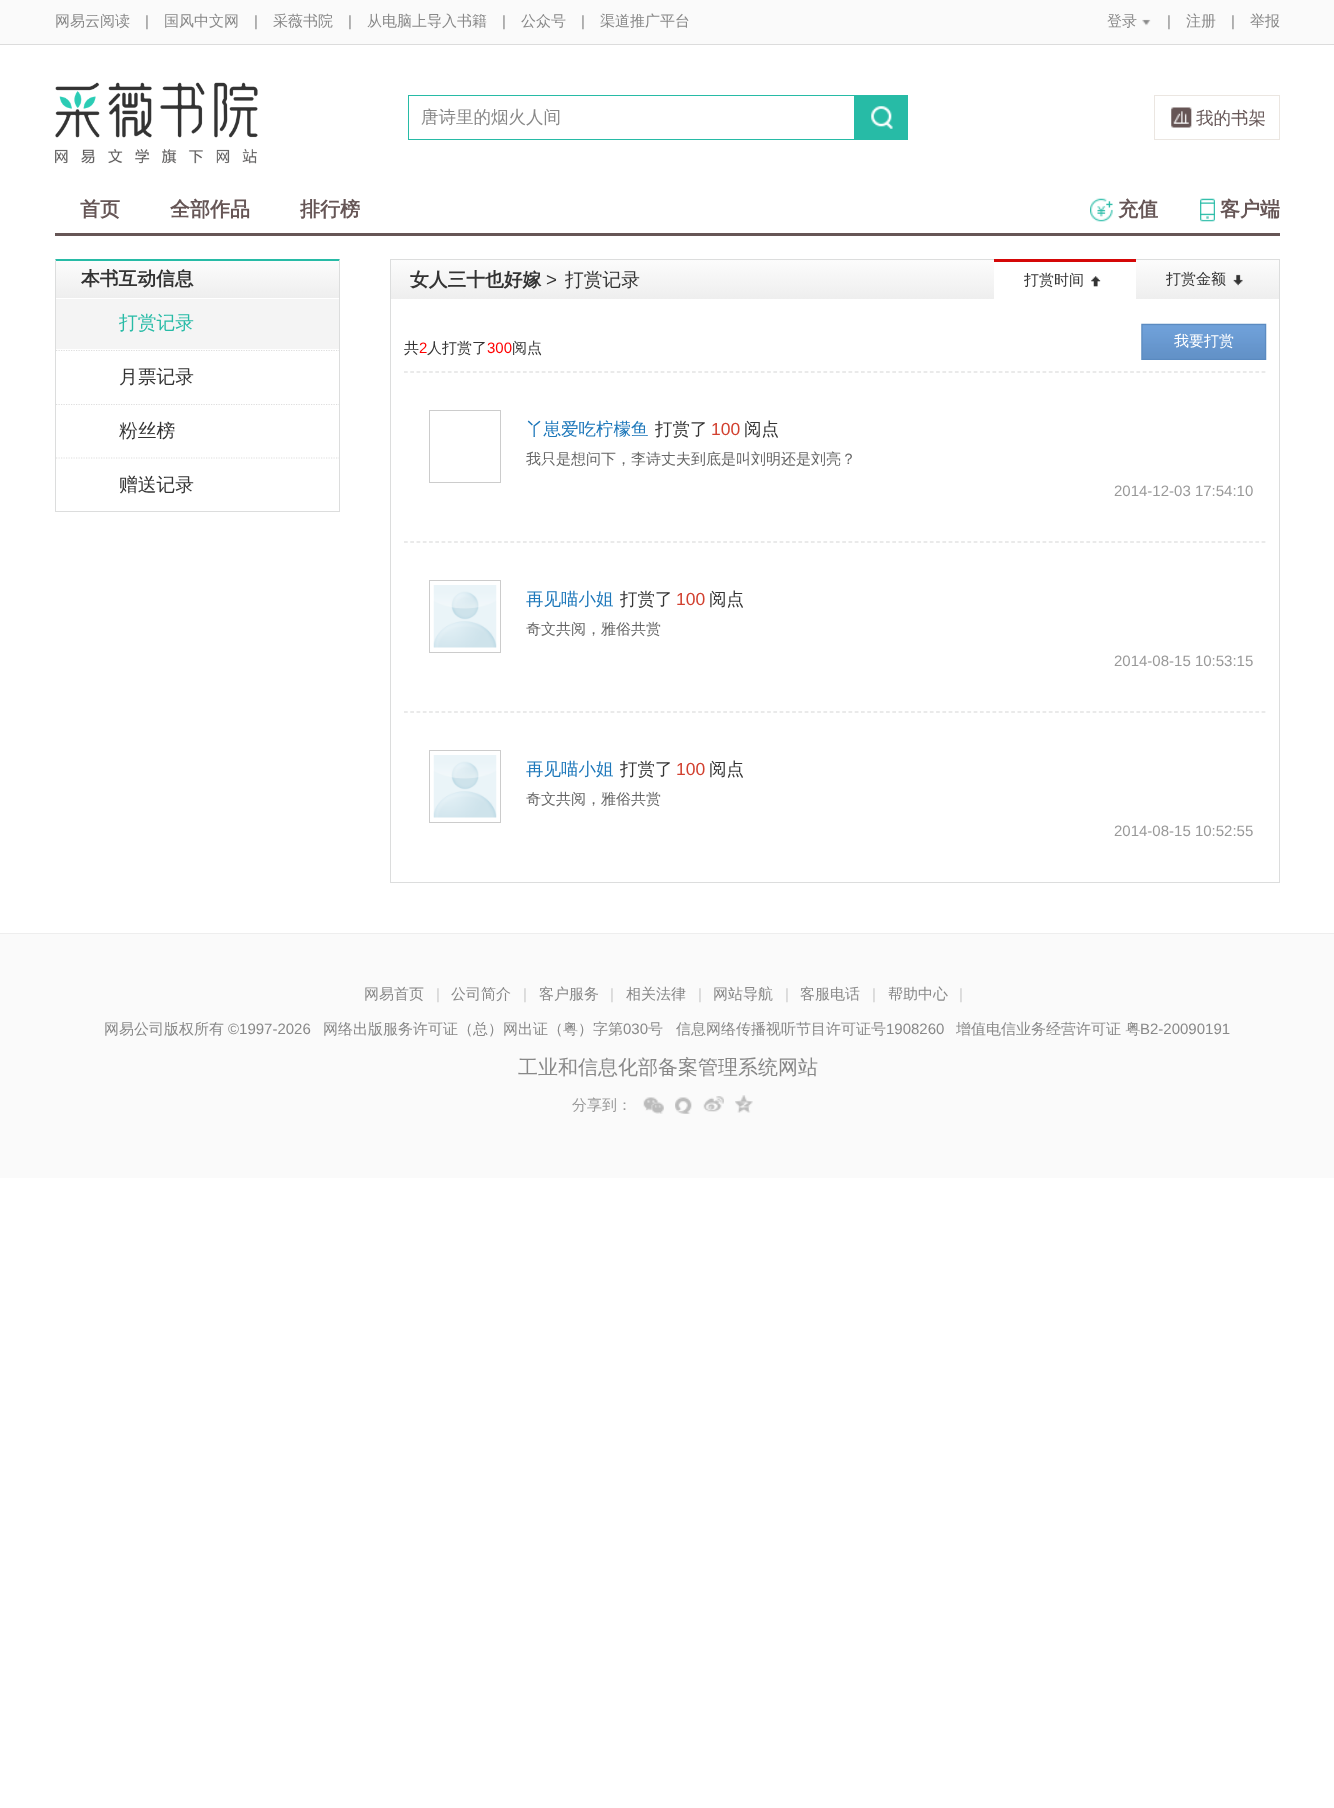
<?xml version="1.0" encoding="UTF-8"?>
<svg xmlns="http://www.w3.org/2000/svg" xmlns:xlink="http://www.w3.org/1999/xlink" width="1334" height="1808">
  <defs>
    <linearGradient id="g1" gradientUnits="userSpaceOnUse" x1="56" y1="261" x2="56" y2="298"><stop offset="0" stop-color="#fcfcfc" /><stop offset="1" stop-color="#eeeeee" /></linearGradient>
    <linearGradient id="g2" gradientUnits="userSpaceOnUse" x1="391" y1="260" x2="391" y2="299"><stop offset="0" stop-color="#fcfcfc" /><stop offset="1" stop-color="#eeeeee" /></linearGradient>
  </defs>
  <rect width="100%" height="100%" fill="#ffffff" />
  <rect width="1334" height="44" fill="#fafafa" />
  <rect y="44" width="1334" height="1" fill="#dcdcdc" />
  <image x="1142" y="19" width="9" height="7" xlink:href="image1.png" />
  <image x="55" y="82" width="203" height="82" xlink:href="image2.png" />
  <rect x="408.5" y="95.5" width="446" height="44" fill="none" stroke="#27bba6" />
  <rect x="855" y="95" width="53" height="45" fill="#27bba6" />
  <image x="871" y="106" width="22" height="23" xlink:href="image3.png" />
  <image x="1171" y="107" width="21" height="21" xlink:href="image4.png" />
  <rect x="1154.5" y="95.5" width="125" height="44" fill="none" stroke="#ebe6e1" />
  <rect x="55" y="233" width="1225" height="3" fill="#665656" />
  <image x="1090" y="198" width="23" height="24" xlink:href="image5.png" />
  <image x="1200" y="198" width="15" height="24" xlink:href="image6.png" />
  <path d="M 55 259 h 285 l -1 2 h -283 z" fill="#27bba6" />
  <path d="M 340 259 v 253 l -1 -1 v -250 z" fill="#dcdddd" />
  <rect x="55" y="511" width="285" height="1" fill="#dcdddd" />
  <path d="M 55 512 v -253 l 1 2 v 250 z" fill="#dcdddd" />
  <rect x="56" y="261" width="283" height="37" fill="url(#g1)" />
  <path d="M 56 350.5 h 283" fill="none" stroke="#dedede" stroke-width="1.2" stroke-dasharray="1.25 1.25" />
  <rect x="56" y="299" width="283" height="50" fill="#f4f4f4" />
  <rect x="56" y="349" width="283" height="1" fill="#ffffff" />
  <path d="M 56 404.5 h 283" fill="none" stroke="#dedede" stroke-width="1.2" stroke-dasharray="1.25 1.25" />
  <rect x="56" y="351" width="283" height="1" fill="#ffffff" />
  <rect x="56" y="403" width="283" height="1" fill="#ffffff" />
  <path d="M 56 458 h 283" fill="none" stroke="#dedede" stroke-width="1.2" stroke-dasharray="1.25 1.25" />
  <rect x="56" y="405" width="283" height="1" fill="#ffffff" />
  <rect x="390.5" y="259.5" width="889" height="623" fill="none" stroke="#dcdddd" />
  <rect x="391" y="260" width="888" height="39" fill="url(#g2)" />
  <rect x="994" y="262" width="142" height="37" fill="#ffffff" />
  <rect x="994" y="259" width="142" height="3" fill="#d50808" />
  <image x="1091" y="276" width="10" height="11" xlink:href="image7.png" />
  <image x="1233" y="274" width="10" height="12" xlink:href="image8.png" />
  <path d="M 404 372 h 862" fill="none" stroke="#d5d6d6" stroke-width="1.2" stroke-dasharray="3.75 2.51" />
  <image x="1141" y="323" width="126" height="37" xlink:href="image9.png" />
  <path d="M 404 542 h 862" fill="none" stroke="#d5d6d6" stroke-width="1.2" stroke-dasharray="3.75 2.51" />
  <rect x="429.5" y="410.5" width="71" height="72" fill="none" stroke="#cccccc" />
  <path d="M 404 712 h 862" fill="none" stroke="#d5d6d6" stroke-width="1.2" stroke-dasharray="3.75 2.51" />
  <rect x="429.5" y="580.5" width="71" height="72" fill="none" stroke="#cccccc" />
  <image x="433" y="585" width="64" height="63" xlink:href="image10.png" />
  <rect x="429.5" y="750.5" width="71" height="72" fill="none" stroke="#cccccc" />
  <image x="433" y="755" width="64" height="63" xlink:href="image10.png" />
  <rect y="934" width="1334" height="244" fill="#fafafa" />
  <rect y="933" width="1334" height="1" fill="#eeeeee" />
  <image x="643" y="1097" width="21" height="17" xlink:href="image11.png" />
  <image x="675" y="1097" width="17" height="17" xlink:href="image12.png" />
  <image x="703" y="1096" width="21" height="16" xlink:href="image13.png" />
  <image x="735" y="1095" width="18" height="18" xlink:href="image14.png" />
  <text x="55" y="26" style="font-family: WenQuanYi Zen Hei; font-size: 15px; font-weight: 500; fill: #888888">网易云阅读</text>
  <text x="145" y="26" style="font-family: Liberation Sans; font-size: 15px; fill: #888888">|</text>
  <text x="164" y="26" style="font-family: WenQuanYi Zen Hei; font-size: 15px; font-weight: 500; fill: #888888">国风中文网</text>
  <text x="254" y="26" style="font-family: Liberation Sans; font-size: 15px; fill: #888888">|</text>
  <text x="273" y="26" style="font-family: WenQuanYi Zen Hei; font-size: 15px; font-weight: 500; fill: #888888">采薇书院</text>
  <text x="348" y="26" style="font-family: Liberation Sans; font-size: 15px; fill: #888888">|</text>
  <text x="367" y="26" style="font-family: WenQuanYi Zen Hei; font-size: 15px; font-weight: 500; fill: #888888">从电脑上导入书籍</text>
  <text x="502" y="26" style="font-family: Liberation Sans; font-size: 15px; fill: #888888">|</text>
  <text x="521" y="26" style="font-family: WenQuanYi Zen Hei; font-size: 15px; font-weight: 500; fill: #888888">公众号</text>
  <text x="581" y="26" style="font-family: Liberation Sans; font-size: 15px; fill: #888888">|</text>
  <text x="600" y="26" style="font-family: WenQuanYi Zen Hei; font-size: 15px; font-weight: 500; fill: #888888">渠道推广平台</text>
  <text x="1107" y="26" style="font-family: WenQuanYi Zen Hei; font-size: 15px; font-weight: 500; fill: #888888">登录</text>
  <text x="1167" y="26" style="font-family: Liberation Sans; font-size: 15px; fill: #888888">|</text>
  <text x="1186" y="26" style="font-family: WenQuanYi Zen Hei; font-size: 15px; font-weight: 500; fill: #888888">注册</text>
  <text x="1231" y="26" style="font-family: Liberation Sans; font-size: 15px; fill: #888888">|</text>
  <text x="1250" y="26" style="font-family: WenQuanYi Zen Hei; font-size: 15px; font-weight: 500; fill: #888888">举报</text>
  <text x="421" y="123" style="font-family: WenQuanYi Zen Hei; font-size: 17.5px; font-weight: 500; fill: #888888">唐诗里的烟火人间</text>
  <text x="1196" y="124" style="font-family: WenQuanYi Zen Hei; font-size: 17.5px; font-weight: 500; fill: #665656">我的书架</text>
  <text x="80" y="216" style="font-family: WenQuanYi Zen Hei; font-size: 20px; font-weight: bold; fill: #665656">首页</text>
  <text x="170" y="216" style="font-family: WenQuanYi Zen Hei; font-size: 20px; font-weight: bold; fill: #665656">全部作品</text>
  <text x="300" y="216" style="font-family: WenQuanYi Zen Hei; font-size: 20px; font-weight: bold; fill: #665656">排行榜</text>
  <text x="1118" y="216" style="font-family: WenQuanYi Zen Hei; font-size: 20px; font-weight: bold; fill: #665656">充值</text>
  <text x="1220" y="216" style="font-family: WenQuanYi Zen Hei; font-size: 20px; font-weight: bold; fill: #665656">客户端</text>
  <text x="81" y="285" style="font-family: WenQuanYi Zen Hei; font-size: 18.75px; font-weight: bold; fill: #333333">本书互动信息</text>
  <text x="119" y="329" style="font-family: WenQuanYi Zen Hei; font-size: 18.75px; font-weight: 500; fill: #27bba6">打赏记录</text>
  <text x="119" y="383" style="font-family: WenQuanYi Zen Hei; font-size: 18.75px; font-weight: 500; fill: #333333">月票记录</text>
  <text x="119" y="437" style="font-family: WenQuanYi Zen Hei; font-size: 18.75px; font-weight: 500; fill: #333333">粉丝榜</text>
  <text x="119" y="491" style="font-family: WenQuanYi Zen Hei; font-size: 18.75px; font-weight: 500; fill: #333333">赠送记录</text>
  <text x="410" y="286" style="font-family: WenQuanYi Zen Hei; font-size: 18.75px; font-weight: bold; fill: #333333">女人三十也好嫁</text>
  <text x="546" y="286" style="font-family: Liberation Sans; font-size: 18.75px; fill: #333333">&gt;</text>
  <text x="565" y="286" style="font-family: WenQuanYi Zen Hei; font-size: 18.75px; font-weight: 500; fill: #333333">打赏记录</text>
  <text x="1024" y="285" style="font-family: WenQuanYi Zen Hei; font-size: 15px; font-weight: 500; fill: #333333">打赏时间</text>
  <text x="1166" y="284" style="font-family: WenQuanYi Zen Hei; font-size: 15px; font-weight: 500; fill: #333333">打赏金额</text>
  <text x="404" y="353" style="font-family: WenQuanYi Zen Hei; font-size: 15px; font-weight: 500; fill: #333333">共</text>
  <text x="419" y="353" style="font-family: Liberation Sans; font-size: 15px; fill: #ff0000">2</text>
  <text x="427" y="353" style="font-family: WenQuanYi Zen Hei; font-size: 15px; font-weight: 500; fill: #333333">人打赏了</text>
  <text x="487" y="353" style="font-family: Liberation Sans; font-size: 15px; fill: #ff0000">300</text>
  <text x="512" y="353" style="font-family: WenQuanYi Zen Hei; font-size: 15px; font-weight: 500; fill: #333333">阅点</text>
  <text x="1174" y="346" style="font-family: WenQuanYi Zen Hei; font-size: 15px; font-weight: 500; fill: #ffffff">我要打赏</text>
  <text x="526" y="435" style="font-family: WenQuanYi Zen Hei; font-size: 17.5px; font-weight: 500; fill: #1c77ba">丫崽爱吃柠檬鱼</text>
  <text x="655" y="435" style="font-family: WenQuanYi Zen Hei; font-size: 17.5px; font-weight: 500; fill: #333333">打赏了</text>
  <text x="711" y="435" style="font-family: Liberation Sans; font-size: 17.5px; fill: #d24130">100</text>
  <text x="744" y="435" style="font-family: WenQuanYi Zen Hei; font-size: 17.5px; font-weight: 500; fill: #333333">阅点</text>
  <text x="526" y="464" style="font-family: WenQuanYi Zen Hei; font-size: 15px; font-weight: 500; fill: #666666">我只是想问下，李诗丈夫到底是叫刘明还是刘亮？</text>
  <text x="1114" y="496" style="font-family: Liberation Sans; font-size: 15px; fill: #999999">2014-12-03 17:54:10</text>
  <text x="526" y="605" style="font-family: WenQuanYi Zen Hei; font-size: 17.5px; font-weight: 500; fill: #1c77ba">再见喵小姐</text>
  <text x="620" y="605" style="font-family: WenQuanYi Zen Hei; font-size: 17.5px; font-weight: 500; fill: #333333">打赏了</text>
  <text x="676" y="605" style="font-family: Liberation Sans; font-size: 17.5px; fill: #d24130">100</text>
  <text x="709" y="605" style="font-family: WenQuanYi Zen Hei; font-size: 17.5px; font-weight: 500; fill: #333333">阅点</text>
  <text x="526" y="634" style="font-family: WenQuanYi Zen Hei; font-size: 15px; font-weight: 500; fill: #666666">奇文共阅，雅俗共赏</text>
  <text x="1114" y="666" style="font-family: Liberation Sans; font-size: 15px; fill: #999999">2014-08-15 10:53:15</text>
  <text x="526" y="775" style="font-family: WenQuanYi Zen Hei; font-size: 17.5px; font-weight: 500; fill: #1c77ba">再见喵小姐</text>
  <text x="620" y="775" style="font-family: WenQuanYi Zen Hei; font-size: 17.5px; font-weight: 500; fill: #333333">打赏了</text>
  <text x="676" y="775" style="font-family: Liberation Sans; font-size: 17.5px; fill: #d24130">100</text>
  <text x="709" y="775" style="font-family: WenQuanYi Zen Hei; font-size: 17.5px; font-weight: 500; fill: #333333">阅点</text>
  <text x="526" y="804" style="font-family: WenQuanYi Zen Hei; font-size: 15px; font-weight: 500; fill: #666666">奇文共阅，雅俗共赏</text>
  <text x="1114" y="836" style="font-family: Liberation Sans; font-size: 15px; fill: #999999">2014-08-15 10:52:55</text>
  <text x="364" y="999" style="font-family: WenQuanYi Zen Hei; font-size: 15px; font-weight: 500; fill: #888888">网易首页</text>
  <text x="436" y="999" style="font-family: Liberation Sans; font-size: 15px; fill: #cccccc">|</text>
  <text x="451" y="999" style="font-family: WenQuanYi Zen Hei; font-size: 15px; font-weight: 500; fill: #888888">公司简介</text>
  <text x="523" y="999" style="font-family: Liberation Sans; font-size: 15px; fill: #cccccc">|</text>
  <text x="539" y="999" style="font-family: WenQuanYi Zen Hei; font-size: 15px; font-weight: 500; fill: #888888">客户服务</text>
  <text x="610" y="999" style="font-family: Liberation Sans; font-size: 15px; fill: #cccccc">|</text>
  <text x="626" y="999" style="font-family: WenQuanYi Zen Hei; font-size: 15px; font-weight: 500; fill: #888888">相关法律</text>
  <text x="698" y="999" style="font-family: Liberation Sans; font-size: 15px; fill: #cccccc">|</text>
  <text x="713" y="999" style="font-family: WenQuanYi Zen Hei; font-size: 15px; font-weight: 500; fill: #888888">网站导航</text>
  <text x="785" y="999" style="font-family: Liberation Sans; font-size: 15px; fill: #cccccc">|</text>
  <text x="800" y="999" style="font-family: WenQuanYi Zen Hei; font-size: 15px; font-weight: 500; fill: #888888">客服电话</text>
  <text x="872" y="999" style="font-family: Liberation Sans; font-size: 15px; fill: #cccccc">|</text>
  <text x="888" y="999" style="font-family: WenQuanYi Zen Hei; font-size: 15px; font-weight: 500; fill: #888888">帮助中心</text>
  <text x="959" y="999" style="font-family: Liberation Sans; font-size: 15px; fill: #cccccc">|</text>
  <text x="104" y="1034" style="font-family: WenQuanYi Zen Hei; font-size: 15px; font-weight: 500; fill: #888888">网易公司版权所有</text>
  <text x="228" y="1034" style="font-family: Liberation Sans; font-size: 15px; fill: #888888">©1997-2026</text>
  <text x="323" y="1034" style="font-family: WenQuanYi Zen Hei; font-size: 15px; font-weight: 500; fill: #888888">网络出版服务许可证（总）网出证（粤）字第</text>
  <text x="623" y="1034" style="font-family: Liberation Sans; font-size: 15px; fill: #888888">030</text>
  <text x="648" y="1034" style="font-family: WenQuanYi Zen Hei; font-size: 15px; font-weight: 500; fill: #888888">号</text>
  <text x="676" y="1034" style="font-family: WenQuanYi Zen Hei; font-size: 15px; font-weight: 500; fill: #888888">信息网络传播视听节目许可证号</text>
  <text x="886" y="1034" style="font-family: Liberation Sans; font-size: 15px; fill: #888888">1908260</text>
  <text x="956" y="1034" style="font-family: WenQuanYi Zen Hei; font-size: 15px; font-weight: 500; fill: #888888">增值电信业务经营许可证 粤</text>
  <text x="1140" y="1034" style="font-family: Liberation Sans; font-size: 15px; fill: #888888">B2-20090191</text>
  <text x="518" y="1074" style="font-family: WenQuanYi Zen Hei; font-size: 20px; font-weight: 500; fill: #888888">工业和信息化部备案管理系统网站</text>
  <text x="572" y="1110" style="font-family: WenQuanYi Zen Hei; font-size: 15px; font-weight: 500; fill: #999999">分享到：</text>
</svg>
